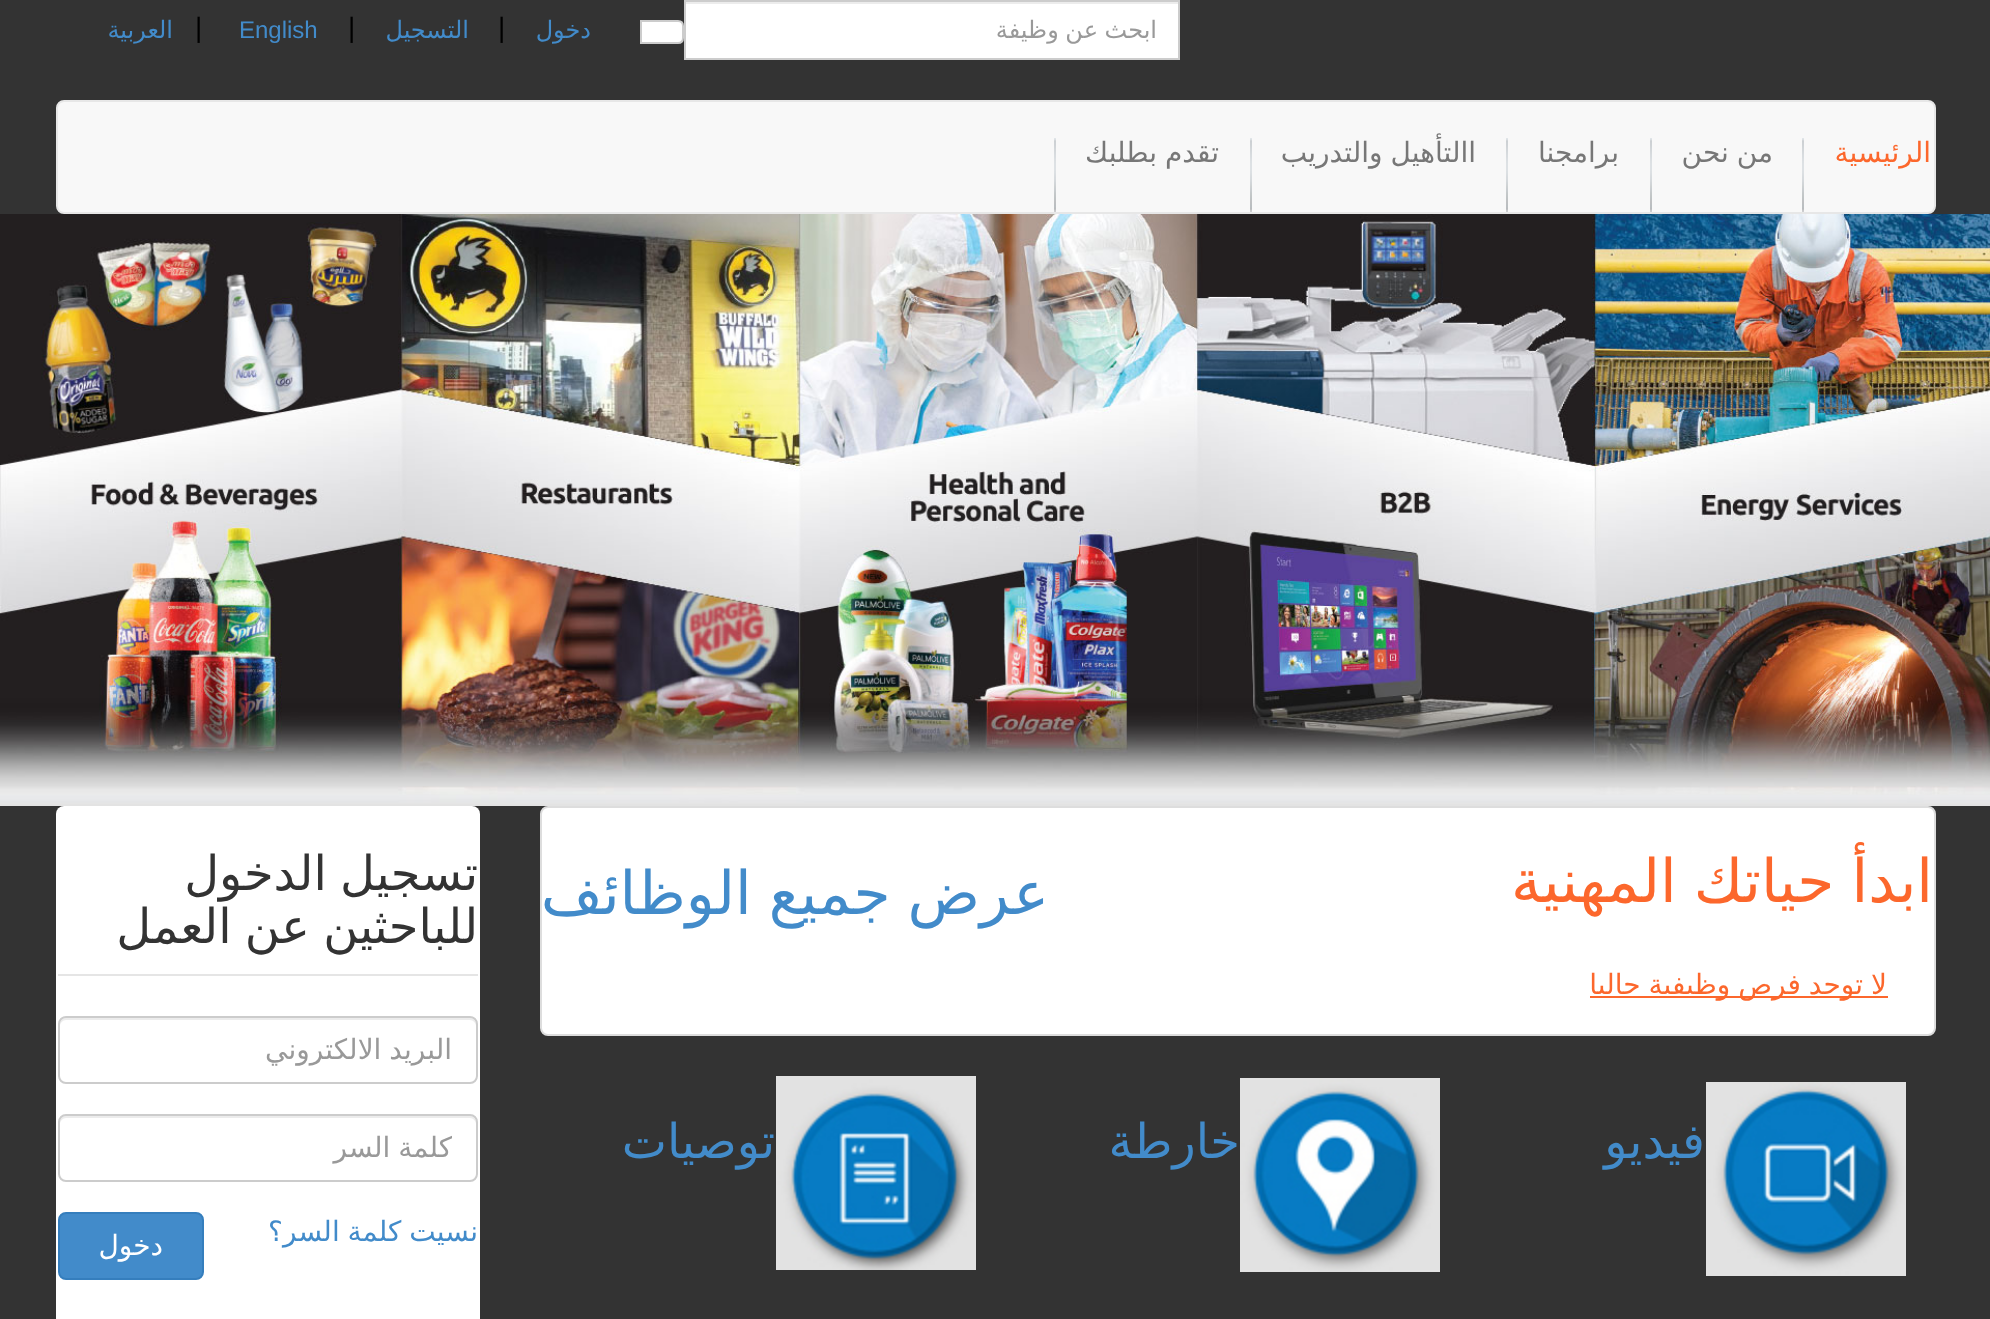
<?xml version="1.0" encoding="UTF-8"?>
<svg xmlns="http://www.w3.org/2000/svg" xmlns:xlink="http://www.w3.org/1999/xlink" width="1990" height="1319">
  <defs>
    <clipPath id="clip1"><rect x="84" y="1132" width="368" height="32" /></clipPath>
  </defs>
  <rect width="100%" height="100%" fill="#333333" />
  <rect x="686" y="4" width="492" height="54" fill="#ffffff" />
  <rect x="686" y="2" width="492" height="2" fill="#ececec" />
  <rect x="685" y="1" width="494" height="58" fill="none" stroke="#cccccc" stroke-width="2" />
  <path d="M 641 21 h 37 c 3 0 5 2 5 5 v 12 c 0 3 -2 5 -5 5 h -37 z" fill="#ffffff" stroke="#cccccc" stroke-width="2" />
  <rect x="57" y="101" width="1878" height="112" rx="7" fill="#f8f8f8" stroke="#e7e7e7" stroke-width="2" />
  <image x="1802" y="138" width="2" height="74" xlink:href="image1.png" />
  <image x="1650" y="138" width="2" height="74" xlink:href="image1.png" />
  <image x="1506" y="138" width="2" height="74" xlink:href="image1.png" />
  <image x="1250" y="138" width="2" height="74" xlink:href="image1.png" />
  <image x="1054" y="138" width="2" height="74" xlink:href="image1.png" />
  <image x="0" y="214" width="1990" height="592" xlink:href="image2.png" />
  <rect x="541" y="807" width="1394" height="228" rx="7" fill="#ffffff" stroke="#dddddd" stroke-width="2" />
  <rect x="1590" y="996" width="298" height="2" fill="#fc672c" />
  <image x="1706" y="1082" width="200" height="194" xlink:href="image3.png" />
  <image x="1240" y="1078" width="200" height="194" xlink:href="image4.png" />
  <image x="776" y="1076" width="200" height="194" xlink:href="image5.png" />
  <rect x="56" y="806" width="424" height="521" rx="8" fill="#ffffff" />
  <rect x="58" y="974" width="420" height="2" fill="#e5e5e5" />
  <path d="M 66 1020 h 404 c 3 0 6 3 6 6 v -2 c 0 -3 -3 -6 -6 -6 h -404 c -3 0 -6 3 -6 6 v 2 c 0 -3 3 -6 6 -6 z" fill="#ececec" />
  <rect x="59" y="1017" width="418" height="66" rx="7" fill="none" stroke="#cccccc" stroke-width="2" />
  <path d="M 66 1118 h 404 c 3 0 6 3 6 6 v -2 c 0 -3 -3 -6 -6 -6 h -404 c -3 0 -6 3 -6 6 v 2 c 0 -3 3 -6 6 -6 z" fill="#ececec" />
  <rect x="59" y="1115" width="418" height="66" rx="7" fill="none" stroke="#cccccc" stroke-width="2" />
  <rect x="59" y="1213" width="144" height="66" rx="7" fill="#428bca" stroke="#357ebd" stroke-width="2" />
  <text x="1157" y="38" word-spacing="-1" style="font-family: DejaVu Sans; font-size: 24px; direction: rtl; fill: #999999">ابحث عن وظيفة</text>
  <text x="591" y="38" style="font-family: DejaVu Sans; font-size: 24px; direction: rtl; fill: #428bca">دخول</text>
  <text x="498" y="37" style="font-family: Liberation Sans; font-size: 28px; fill: #000000">|</text>
  <text x="469" y="38" style="font-family: DejaVu Sans; font-size: 24px; direction: rtl; fill: #428bca">التسجيل</text>
  <text x="348" y="37" style="font-family: Liberation Sans; font-size: 28px; fill: #000000">|</text>
  <text x="239" y="38" style="font-family: Liberation Sans; font-size: 24px; fill: #428bca">English</text>
  <text x="195" y="37" style="font-family: Liberation Sans; font-size: 28px; fill: #000000">|</text>
  <text x="173" y="38" style="font-family: DejaVu Sans; font-size: 24px; direction: rtl; fill: #428bca">العربية</text>
  <text x="1931" y="162" style="font-family: DejaVu Sans; font-size: 28px; direction: rtl; fill: #fc672c">الرئيسية</text>
  <text x="1773" y="162" word-spacing="-1" style="font-family: DejaVu Sans; font-size: 28px; direction: rtl; fill: #777777">من نحن</text>
  <text x="1619" y="162" style="font-family: DejaVu Sans; font-size: 28px; direction: rtl; fill: #777777">برامجنا</text>
  <text x="1476" y="162" word-spacing="-1" style="font-family: DejaVu Sans; font-size: 28px; direction: rtl; fill: #777777">االتأهيل والتدريب</text>
  <text x="1219" y="162" word-spacing="-1" style="font-family: DejaVu Sans; font-size: 28px; direction: rtl; fill: #777777">تقدم بطلبك</text>
  <text x="1933" y="902" word-spacing="-2" style="font-family: DejaVu Sans; font-size: 60px; direction: rtl; fill: #fc672c">ابدأ حياتك المهنية</text>
  <text x="1049" y="914" word-spacing="-2" style="font-family: DejaVu Sans; font-size: 60px; direction: rtl; fill: #428bca">عرض جميع الوظائف</text>
  <text x="1887" y="994" word-spacing="-1" style="font-family: DejaVu Sans; font-size: 28px; direction: rtl; fill: #fc672c">لا توجد فرص وظيفية حاليا</text>
  <text x="1705" y="1158" style="font-family: DejaVu Sans; font-size: 48px; direction: rtl; fill: #428bca">فيديو</text>
  <text x="1240" y="1158" style="font-family: DejaVu Sans; font-size: 48px; direction: rtl; fill: #428bca">خارطة</text>
  <text x="775" y="1158" style="font-family: DejaVu Sans; font-size: 48px; direction: rtl; fill: #428bca">توصيات</text>
  <text x="478" y="890" word-spacing="-2" style="font-family: DejaVu Sans; font-size: 48px; direction: rtl; fill: #333333">تسجيل الدخول</text>
  <text x="478" y="943" word-spacing="-2" style="font-family: DejaVu Sans; font-size: 48px; direction: rtl; fill: #333333">للباحثين عن العمل</text>
  <text x="452" y="1059" word-spacing="-1" style="font-family: DejaVu Sans; font-size: 28px; direction: rtl; fill: #999999">البريد الالكتروني</text>
  <g clip-path="url(#clip1)">
    <text x="452" y="1157" word-spacing="-1" style="font-family: DejaVu Sans; font-size: 28px; direction: rtl; fill: #999999">كلمة السر</text>
  </g>
  <text x="478" y="1241" word-spacing="-1" style="font-family: DejaVu Sans; font-size: 28px; direction: rtl; fill: #428bca">نسيت كلمة السر؟</text>
  <text x="163" y="1255" style="font-family: DejaVu Sans; font-size: 28px; direction: rtl; fill: #ffffff">دخول</text>
</svg>
